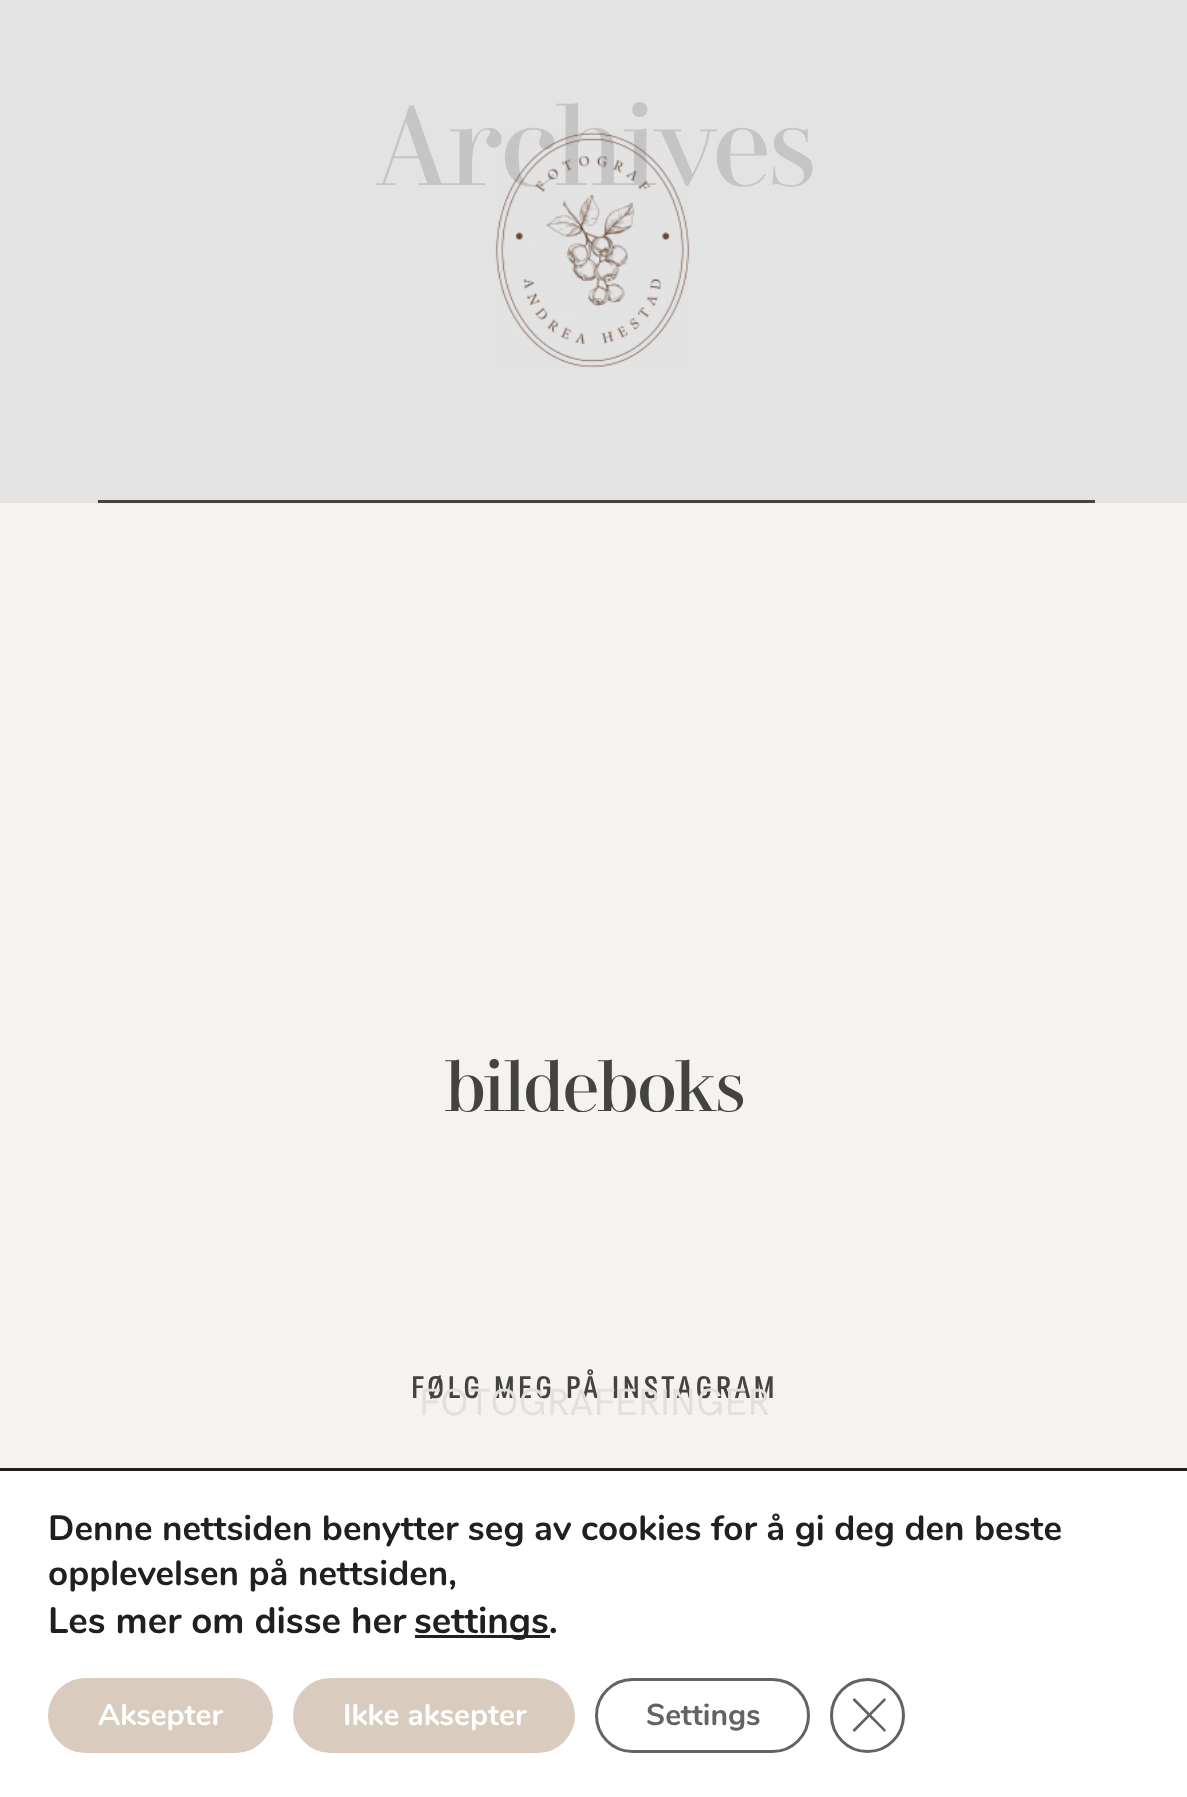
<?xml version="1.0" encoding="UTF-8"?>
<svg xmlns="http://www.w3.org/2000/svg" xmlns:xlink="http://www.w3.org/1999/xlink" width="1187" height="1797">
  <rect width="100%" height="100%" fill="#f6f2f0" />
  <rect width="1187" height="503" fill="#e4e3e3" />
  <rect x="98" y="500" width="997" height="3" fill="#434442" />
  <rect y="1471" width="1187" height="326" fill="#ffffff" />
  <rect y="1468" width="1187" height="3" fill="#202020" />
  <rect x="415" y="1635" width="135" height="3" fill="#202020" />
  <rect x="48" y="1678" width="225" height="75" rx="37.5" fill="#d9cbbe" />
  <rect x="293" y="1678" width="282" height="75" rx="37.5" fill="#d9cbbe" />
  <rect x="596.5" y="1679.5" width="212" height="72" rx="36" fill="none" stroke="#636363" stroke-width="3" />
  <circle cx="867.5" cy="1715.5" r="36" fill="none" stroke="#626262" stroke-width="3" />
  <path d="M 884.5 1698 l 1.5 2 l -31.5 32 l -2 -2 z" fill="#626262" />
  <path d="M 852.5 1700 l 2 -2 l 31.5 32 l -1.5 2 z" fill="#626262" />
  <text x="375" y="185" style="font-family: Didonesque; font-size: 111px; letter-spacing: -3.25px; fill: #c5c5c5">Archives</text>
  <image x="495" y="132" width="195" height="236" xlink:href="image1.png" />
  <text x="444" y="1111" style="font-family: Didonesque; font-size: 69.5px; letter-spacing: -2px; fill: #434442">bildeboks</text>
  <text x="411" y="1398" style="font-family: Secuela; font-size: 31.75px; font-weight: 500; letter-spacing: 3.2px; fill: #434442">FØLG MEG PÅ INSTAGRAM</text>
  <text x="419" y="1415" style="font-family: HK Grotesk; font-size: 38px; fill: #e3dfdd">FOTOGRAFERINGER</text>
  <text x="48" y="1540" style="font-family: Nunito; font-size: 35px; font-weight: bold; fill: #202020">Denne nettsiden benytter seg av cookies for å gi deg den beste</text>
  <text x="48" y="1585" style="font-family: Nunito; font-size: 35px; font-weight: bold; fill: #202020">opplevelsen på nettsiden,</text>
  <text x="48" y="1633" style="font-family: Nunito; font-size: 36.75px; font-weight: bold; fill: #202020">Les mer om disse her</text>
  <text x="414" y="1633" style="font-family: Nunito; font-size: 36.75px; font-weight: bold; fill: #202020">settings.</text>
  <text x="98" y="1725" style="font-family: Nunito; font-size: 30px; font-weight: bold; fill: #ffffff">Aksepter</text>
  <text x="343" y="1725" style="font-family: Nunito; font-size: 30px; font-weight: bold; fill: #ffffff">Ikke aksepter</text>
  <text x="646" y="1725" style="font-family: Nunito; font-size: 30px; font-weight: bold; fill: #636363">Settings</text>
</svg>
